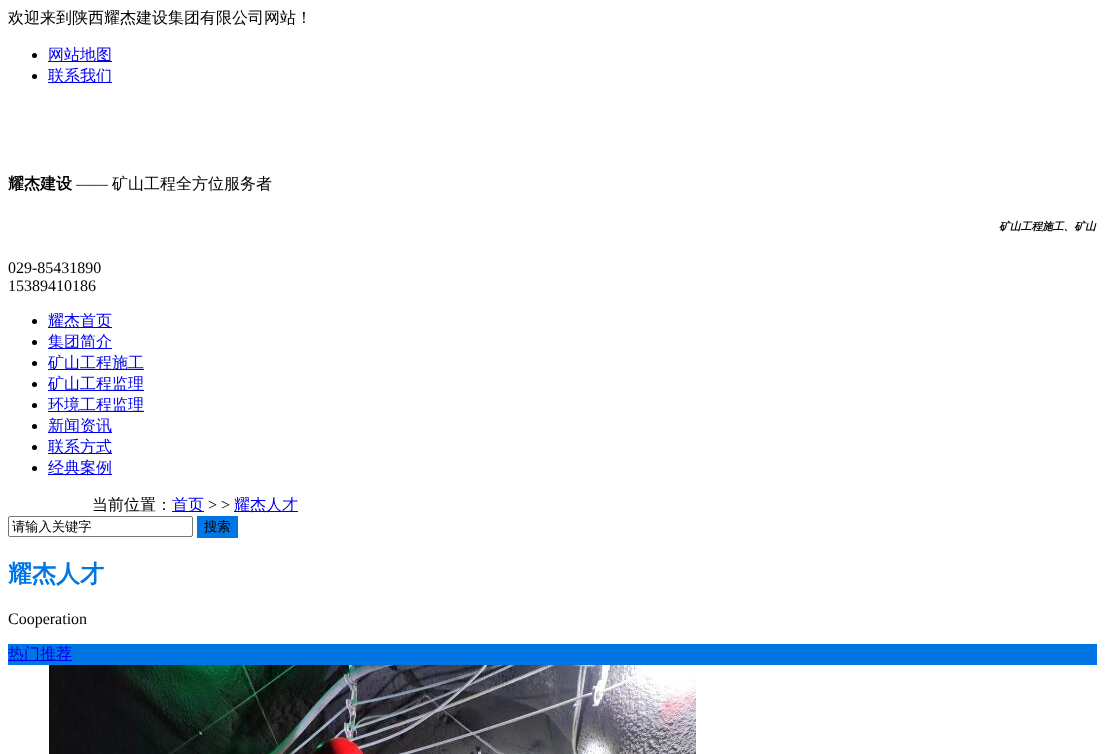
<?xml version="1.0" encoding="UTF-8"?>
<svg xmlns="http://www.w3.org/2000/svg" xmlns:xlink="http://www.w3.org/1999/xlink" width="1105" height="754">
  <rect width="100%" height="100%" fill="#ffffff" />
  <circle cx="34.5" cy="55.5" r="2.5" fill="#000000" />
  <rect x="48" y="61" width="64" height="1" fill="#0000ee" />
  <circle cx="34.5" cy="76.5" r="2.5" fill="#000000" />
  <rect x="48" y="82" width="64" height="1" fill="#0000ee" />
  <circle cx="34.5" cy="321.5" r="2.5" fill="#000000" />
  <rect x="48" y="327" width="64" height="1" fill="#0000ee" />
  <circle cx="34.5" cy="342.5" r="2.5" fill="#000000" />
  <rect x="48" y="348" width="64" height="1" fill="#0000ee" />
  <circle cx="34.5" cy="363.5" r="2.5" fill="#000000" />
  <rect x="48" y="369" width="96" height="1" fill="#0000ee" />
  <circle cx="34.5" cy="384.5" r="2.5" fill="#000000" />
  <rect x="48" y="390" width="96" height="1" fill="#0000ee" />
  <circle cx="34.5" cy="405.5" r="2.5" fill="#000000" />
  <rect x="48" y="411" width="96" height="1" fill="#0000ee" />
  <circle cx="34.5" cy="426.5" r="2.5" fill="#000000" />
  <rect x="48" y="432" width="64" height="1" fill="#0000ee" />
  <circle cx="34.5" cy="447.5" r="2.5" fill="#000000" />
  <rect x="48" y="453" width="64" height="1" fill="#0000ee" />
  <circle cx="34.5" cy="468.5" r="2.5" fill="#000000" />
  <rect x="48" y="474" width="64" height="1" fill="#0000ee" />
  <rect x="172" y="511" width="32" height="1" fill="#0000ee" />
  <rect x="234" y="511" width="64" height="1" fill="#0000ee" />
  <rect x="8.5" y="516.5" width="184" height="20" rx="1.5" fill="none" stroke="#767676" />
  <rect x="197" y="516" width="41" height="22" fill="#0076e4" />
  <rect x="8" y="644" width="1089" height="21" fill="#0076e4" />
  <rect x="8" y="660" width="64" height="1" fill="#0000ee" />
  <image x="49" y="665" width="647" height="89" xlink:href="image1.png" />
  <text x="8" y="23" style="font-family: WenQuanYi Zen Hei; font-size: 16px; font-weight: 500; fill: #000000">欢迎来到陕西耀杰建设集团有限公司网站！</text>
  <text x="48" y="60" style="font-family: WenQuanYi Zen Hei; font-size: 16px; font-weight: 500; fill: #0000ee">网站地图</text>
  <text x="48" y="81" style="font-family: WenQuanYi Zen Hei; font-size: 16px; font-weight: 500; fill: #0000ee">联系我们</text>
  <text x="8" y="189" style="font-family: WenQuanYi Zen Hei; font-size: 16px; font-weight: bold; fill: #000000">耀杰建设</text>
  <text x="76" y="189" style="font-family: Liberation Serif; font-size: 16px; fill: #000000">——</text>
  <text x="112" y="189" style="font-family: WenQuanYi Zen Hei; font-size: 16px; font-weight: 500; fill: #000000">矿山工程全方位服务者</text>
  <text x="999" y="230" style="font-family: WenQuanYi Zen Hei; font-size: 10.75px; font-weight: bold; font-style: italic; fill: #000000">矿山工程施工、矿山</text>
  <text x="8" y="273" style="font-family: Liberation Serif; font-size: 16px; fill: #000000">029-85431890</text>
  <text x="8" y="291" style="font-family: Liberation Serif; font-size: 16px; fill: #000000">15389410186</text>
  <text x="48" y="326" style="font-family: WenQuanYi Zen Hei; font-size: 16px; font-weight: 500; fill: #0000ee">耀杰首页</text>
  <text x="48" y="347" style="font-family: WenQuanYi Zen Hei; font-size: 16px; font-weight: 500; fill: #0000ee">集团简介</text>
  <text x="48" y="368" style="font-family: WenQuanYi Zen Hei; font-size: 16px; font-weight: 500; fill: #0000ee">矿山工程施工</text>
  <text x="48" y="389" style="font-family: WenQuanYi Zen Hei; font-size: 16px; font-weight: 500; fill: #0000ee">矿山工程监理</text>
  <text x="48" y="410" style="font-family: WenQuanYi Zen Hei; font-size: 16px; font-weight: 500; fill: #0000ee">环境工程监理</text>
  <text x="48" y="431" style="font-family: WenQuanYi Zen Hei; font-size: 16px; font-weight: 500; fill: #0000ee">新闻资讯</text>
  <text x="48" y="452" style="font-family: WenQuanYi Zen Hei; font-size: 16px; font-weight: 500; fill: #0000ee">联系方式</text>
  <text x="48" y="473" style="font-family: WenQuanYi Zen Hei; font-size: 16px; font-weight: 500; fill: #0000ee">经典案例</text>
  <text x="92" y="510" style="font-family: WenQuanYi Zen Hei; font-size: 16px; font-weight: 500; fill: #000000">当前位置：</text>
  <text x="172" y="510" style="font-family: WenQuanYi Zen Hei; font-size: 16px; font-weight: 500; fill: #0000ee">首页</text>
  <text x="208" y="510" style="font-family: Liberation Serif; font-size: 16px; fill: #000000">&gt; &gt;</text>
  <text x="234" y="510" style="font-family: WenQuanYi Zen Hei; font-size: 16px; font-weight: 500; fill: #0000ee">耀杰人才</text>
  <text x="12" y="531" style="font-family: WenQuanYi Zen Hei; font-size: 13.25px; font-weight: 500; fill: #000000">请输入关键字</text>
  <text x="204" y="531" style="font-family: WenQuanYi Zen Hei; font-size: 13.25px; font-weight: 500; fill: #000000">搜索</text>
  <text x="8" y="582" style="font-family: WenQuanYi Zen Hei; font-size: 24px; font-weight: bold; fill: #0076e4">耀杰人才</text>
  <text x="8" y="624" style="font-family: Liberation Serif; font-size: 16px; fill: #000000">Cooperation</text>
  <text x="8" y="659" style="font-family: WenQuanYi Zen Hei; font-size: 16px; font-weight: 500; fill: #0000ee">热门推荐</text>
</svg>
